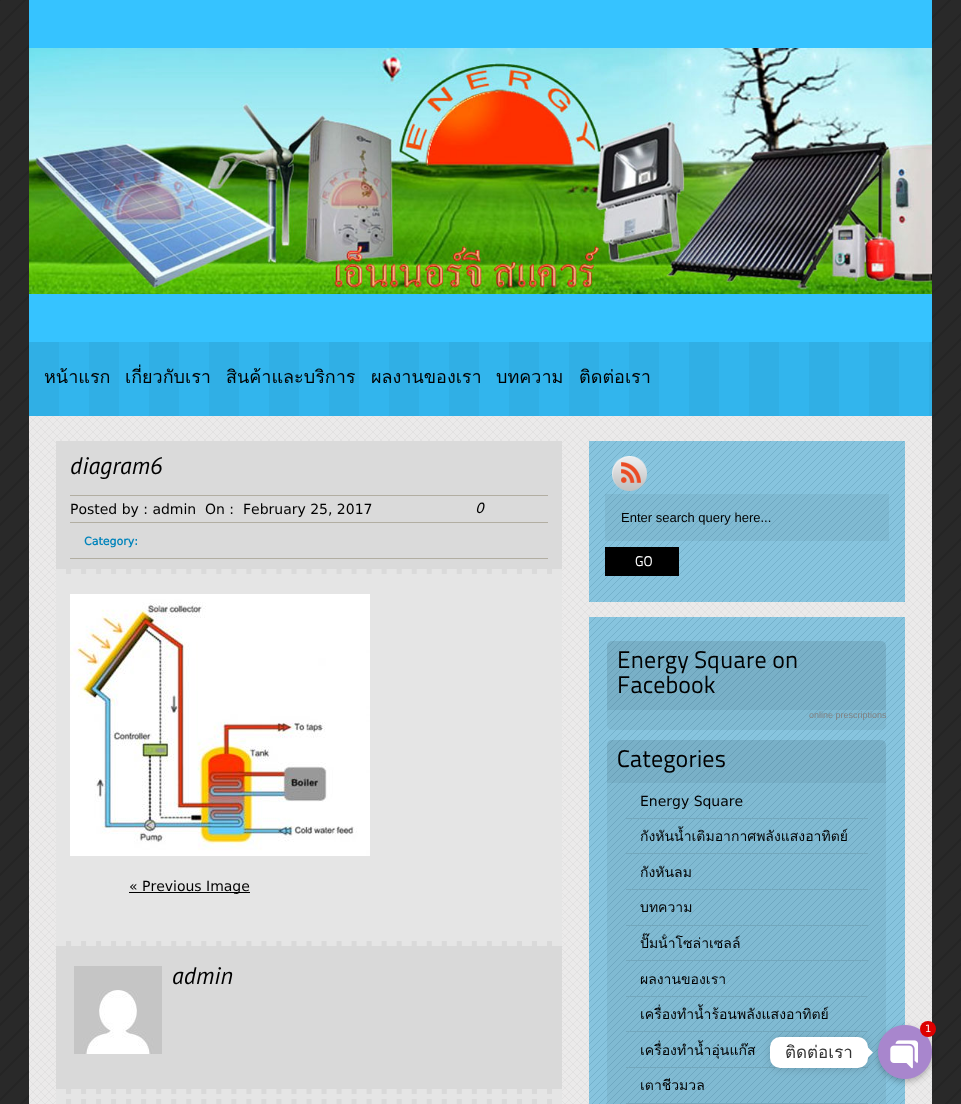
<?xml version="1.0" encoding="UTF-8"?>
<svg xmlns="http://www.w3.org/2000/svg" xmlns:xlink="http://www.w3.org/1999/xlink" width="961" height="1104">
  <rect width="100%" height="100%" fill="#ffffff" />
  <image x="0" y="0" width="961" height="1104" xlink:href="image1.png" />
  <rect x="29" width="903" height="416" fill="#36c3ff" />
  <image x="29" y="48" width="903" height="246" xlink:href="image2.png" />
  <image x="29" y="342" width="903" height="74" xlink:href="image3.png" />
  <image x="29" y="416" width="903" height="688" xlink:href="image4.png" />
  <rect x="56" y="574" width="506" height="525" fill="#e5e5e5" />
  <rect x="56" y="441" width="506" height="133" fill="#dadada" />
  <path d="M 56 571.5 h 506" fill="none" stroke="#e5e5e5" stroke-width="5" stroke-dasharray="10 5.03" />
  <rect x="70" y="495" width="478" height="1" fill="#b2aea2" />
  <rect x="70" y="522" width="478" height="1" fill="#b2aea2" />
  <rect x="70" y="558" width="478" height="1" fill="#b2aea2" />
  <image x="70" y="594" width="300" height="262" xlink:href="image5.png" />
  <rect x="129" y="892" width="121" height="1" fill="#000000" />
  <rect x="56" y="941" width="506" height="153" fill="#d9d9d9" />
  <path d="M 56 943.5 h 506" fill="none" stroke="#e5e5e5" stroke-width="5" stroke-dasharray="10 5.03" />
  <path d="M 56 1091.5 h 506" fill="none" stroke="#e5e5e5" stroke-width="5" stroke-dasharray="10 5.03" />
  <image x="74" y="966" width="88" height="88" xlink:href="image6.png" />
  <rect x="66" y="1099" width="496" height="5" fill="#dadada" />
  <path d="M 56 1101.5 h 506" fill="none" stroke="#e5e5e5" stroke-width="5" stroke-dasharray="10 5.03" />
  <rect x="589" y="441" width="316" height="161" fill="#7ec0dc" />
  <image x="589" y="441" width="316" height="161" xlink:href="image7.png" />
  <image x="612" y="456" width="35" height="35" xlink:href="image8.png" />
  <rect x="605" y="494" width="284" height="47" fill="#000000" fill-opacity="0.05" />
  <rect x="605" y="547" width="74" height="29" fill="#000000" />
  <rect x="589" y="617" width="316" height="487" fill="#7ec0dc" />
  <image x="589" y="617" width="316" height="487" xlink:href="image9.png" />
  <image x="607" y="641" width="279" height="89" xlink:href="image10.png" />
  <image x="607" y="641" width="279" height="69" xlink:href="image11.png" />
  <image x="607" y="740" width="279" height="364" xlink:href="image12.png" />
  <image x="607" y="740" width="279" height="43" xlink:href="image13.png" />
  <rect x="626" y="818" width="242" height="1" fill="#73a7bc" />
  <rect x="626" y="853" width="242" height="1" fill="#73a7bc" />
  <rect x="626" y="889" width="242" height="1" fill="#73a7bc" />
  <rect x="626" y="925" width="242" height="1" fill="#73a7bc" />
  <rect x="626" y="960" width="242" height="1" fill="#73a7bc" />
  <rect x="626" y="996" width="242" height="1" fill="#73a7bc" />
  <rect x="626" y="1031" width="242" height="1" fill="#73a7bc" />
  <rect x="626" y="1067" width="242" height="1" fill="#73a7bc" />
  <rect x="626" y="1103" width="242" height="1" fill="#73a7bc" />
  <rect x="770" y="1038" width="98" height="31" rx="10" fill="#000000" fill-opacity="0.15" filter="blur(4px)" />
  <path d="M 868 1057.5 v -10 l 5 5 z" fill="#ffffff" />
  <rect x="878" y="1028" width="54" height="54" rx="27" fill="#000000" fill-opacity="0.25" filter="blur(3px)" />
  <image x="878" y="1025" width="54" height="54" xlink:href="image14.png" />
  <circle cx="928" cy="1029" r="8" fill="#dd0000" />
  <rect x="770" y="1037" width="98" height="31" rx="10" fill="#ffffff" />
  <text x="44" y="383" style="font-family: Loma; font-size: 18px; fill: #000000">หน้าแรก</text>
  <text x="125" y="383" style="font-family: Loma; font-size: 18px; fill: #000000">เกี่ยวกับเรา</text>
  <text x="226" y="383" style="font-family: Loma; font-size: 18px; fill: #000000">สินค้าและบริการ</text>
  <text x="371" y="383" style="font-family: Loma; font-size: 18px; fill: #000000">ผลงานของเรา</text>
  <text x="496" y="383" style="font-family: Loma; font-size: 18px; fill: #000000">บทความ</text>
  <text x="579" y="383" style="font-family: Loma; font-size: 18px; fill: #000000">ติดต่อเรา</text>
  <text x="70" y="474" style="font-family: PT Sans; font-size: 24px; font-style: italic; fill: #000000">diagram6</text>
  <text x="70" y="514" style="font-family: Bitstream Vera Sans; font-size: 14px; fill: #000000">Posted by : admin</text>
  <text x="205" y="514" style="font-family: Bitstream Vera Sans; font-size: 14px; fill: #000000">On :</text>
  <text x="243" y="514" style="font-family: Bitstream Vera Sans; font-size: 14px; fill: #000000">February 25, 2017</text>
  <text x="475" y="513" style="font-family: Bitstream Vera Sans; font-size: 14px; font-style: italic; fill: #000000">0</text>
  <text x="84" y="545" style="font-family: Bitstream Vera Sans; font-size: 11px; font-weight: bold; fill: #0284bb">Category:</text>
  <text x="129" y="891" style="font-family: Bitstream Vera Sans; font-size: 14px; fill: #000000">« Previous Image</text>
  <text x="172" y="984" style="font-family: PT Sans; font-size: 24px; font-style: italic; fill: #000000">admin</text>
  <text x="621" y="522" style="font-family: Liberation Sans; font-size: 13px; fill: #000000">Enter search query here...</text>
  <text x="635" y="566" style="font-family: 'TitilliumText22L'; font-size: 14px; fill: #ffffff">GO</text>
  <text x="617" y="668" style="font-family: 'TitilliumText22L'; font-size: 24px; fill: #000000">Energy Square on</text>
  <text x="617" y="693" style="font-family: 'TitilliumText22L'; font-size: 24px; fill: #000000">Facebook</text>
  <text x="809" y="718" style="font-family: Liberation Sans; font-size: 9px; fill: #808080">online prescriptions</text>
  <text x="617" y="767" style="font-family: 'TitilliumText22L'; font-size: 24px; fill: #000000">Categories</text>
  <text x="640" y="806" style="font-family: Bitstream Vera Sans; font-size: 14px; fill: #000000">Energy Square</text>
  <text x="640" y="841" style="font-family: Loma; font-size: 14px; fill: #000000">กังหันน้ำเติมอากาศพลังแสงอาทิตย์</text>
  <text x="640" y="877" style="font-family: Loma; font-size: 14px; fill: #000000">กังหันลม</text>
  <text x="640" y="912" style="font-family: Loma; font-size: 14px; fill: #000000">บทความ</text>
  <text x="640" y="948" style="font-family: Loma; font-size: 14px; fill: #000000">ปั๊มน้ําโซล่าเซลล์</text>
  <text x="640" y="984" style="font-family: Loma; font-size: 14px; fill: #000000">ผลงานของเรา</text>
  <text x="640" y="1019" style="font-family: Loma; font-size: 14px; fill: #000000">เครื่องทำน้ำร้อนพลังแสงอาทิตย์</text>
  <text x="640" y="1055" style="font-family: Loma; font-size: 14px; fill: #000000">เครื่องทำน้ำอุ่นแก๊ส</text>
  <text x="640" y="1090" style="font-family: Loma; font-size: 14px; fill: #000000">เตาชีวมวล</text>
  <text x="925" y="1032" style="font-family: Bitstream Vera Sans; font-size: 10px; fill: #ffffff">1</text>
  <text x="785" y="1058" style="font-family: Loma; font-size: 17px; fill: #333333">ติดต่อเรา</text>
</svg>
